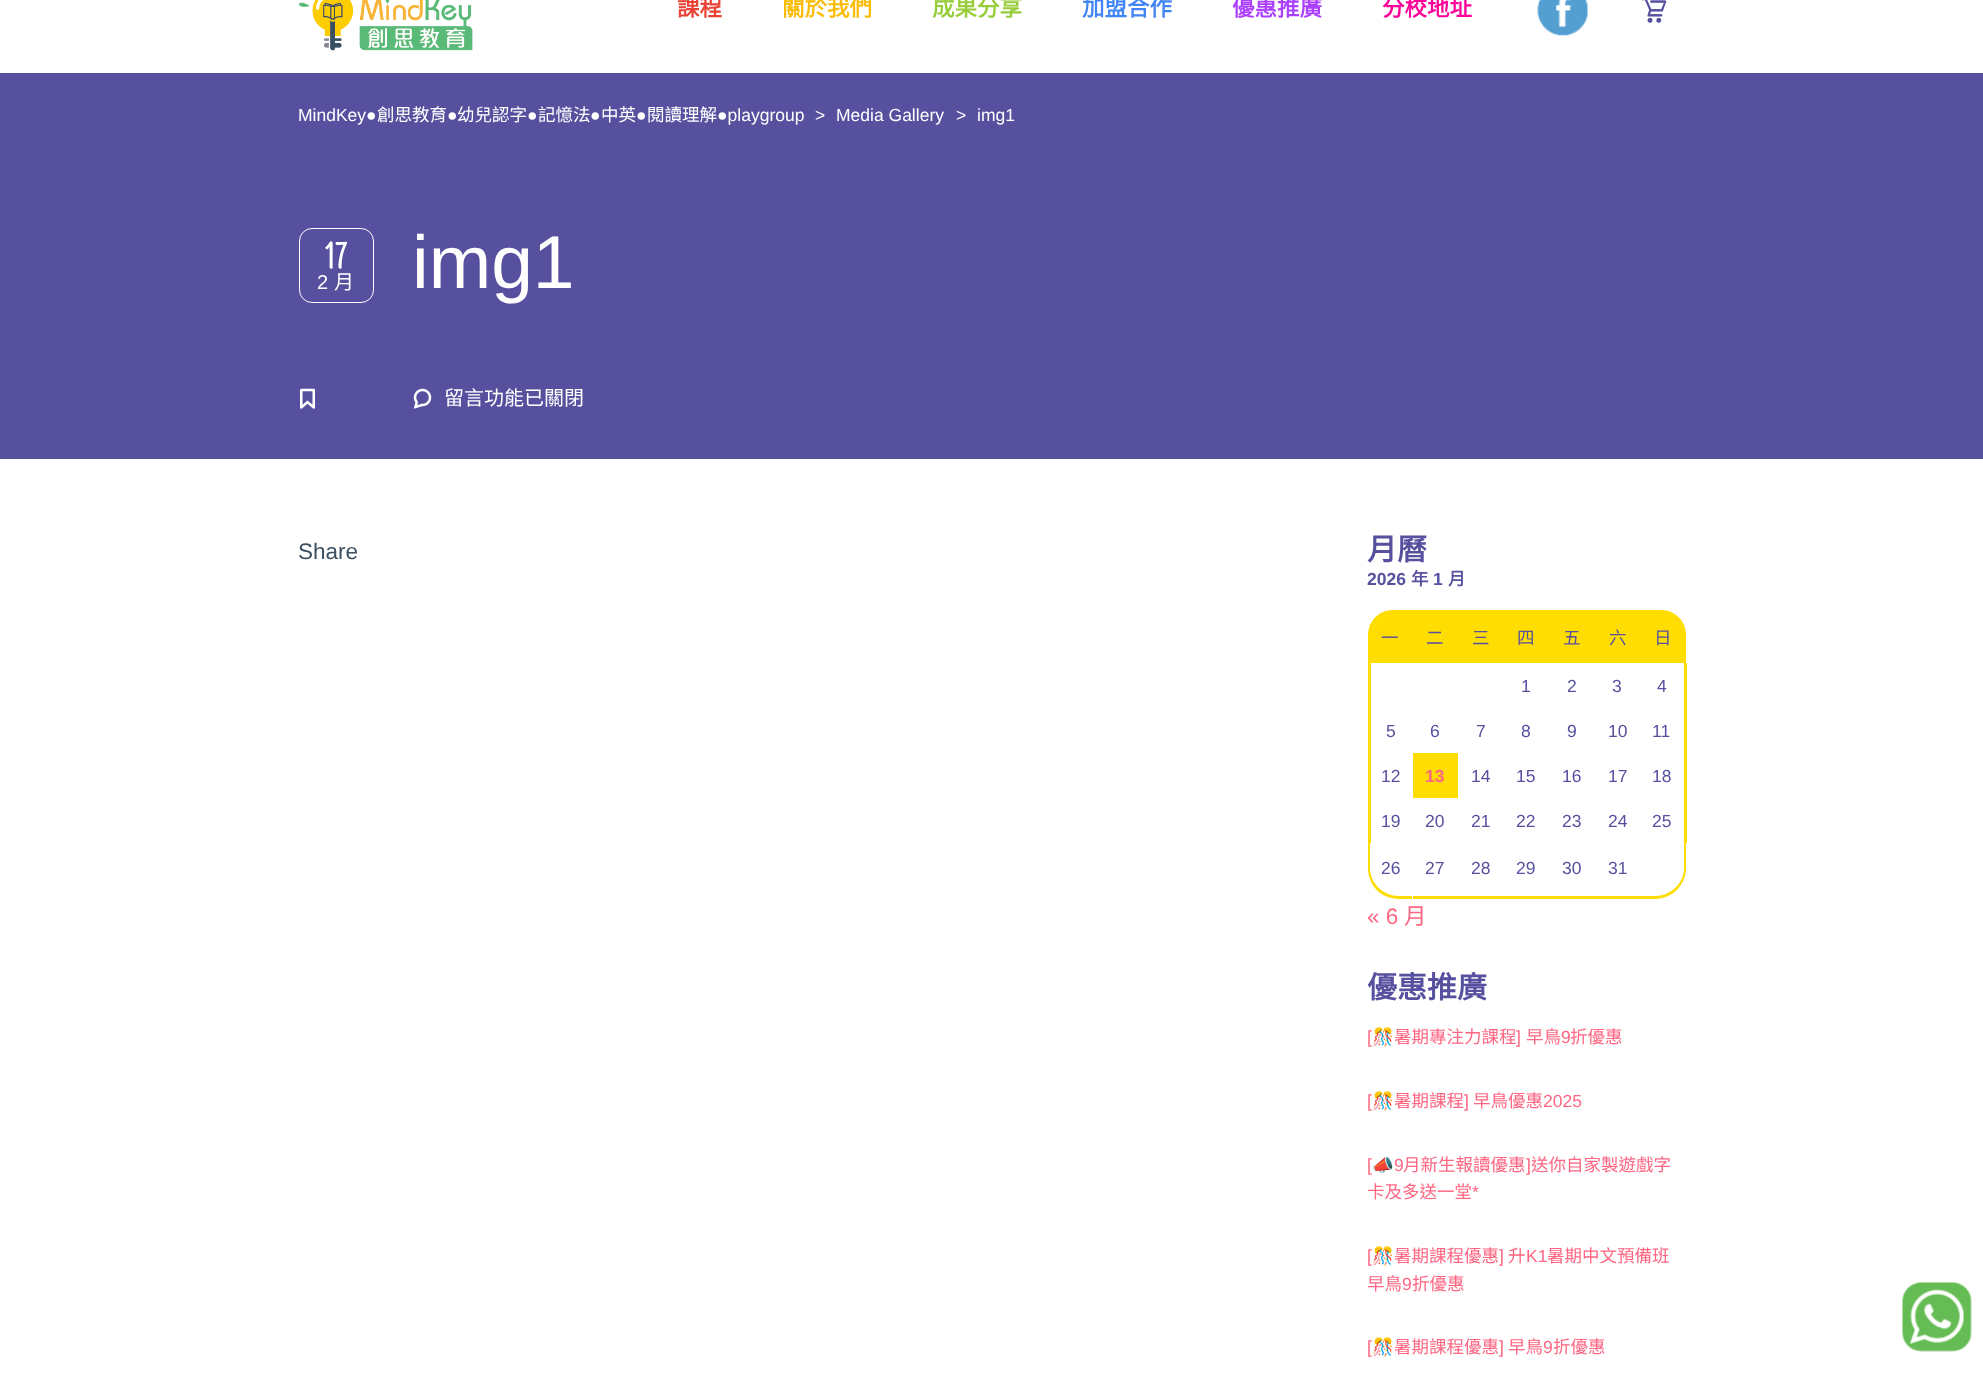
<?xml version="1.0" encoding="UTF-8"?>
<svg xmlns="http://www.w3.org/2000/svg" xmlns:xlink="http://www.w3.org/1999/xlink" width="1983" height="1376">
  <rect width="100%" height="100%" fill="#ffffff" />
  <image x="298" y="0" width="175" height="51" xlink:href="image1.png" />
  <image x="1537" y="0" width="51" height="36" xlink:href="image2.png" />
  <image x="1641" y="0" width="26" height="23" xlink:href="image3.png" />
  <rect y="73" width="1983" height="386" fill="#56509f" />
  <rect x="299.5" y="228.5" width="74" height="74" rx="12.5" fill="none" stroke="#ffffff" />
  <image x="300" y="388" width="15" height="21" xlink:href="image4.png" />
  <image x="413" y="388" width="19" height="21" xlink:href="image5.png" />
  <path d="M 1393 610 h 20 v 53 h -45 v -28 c 0 -14 11 -25 25 -25 z" fill="#ffdd00" />
  <rect x="1413" y="610" width="227" height="53" fill="#ffdd00" />
  <path d="M 1640 610 h 21 c 14 0 25 11 25 25 v 28 h -46 z" fill="#ffdd00" />
  <rect x="1368" y="663" width="3" height="180" fill="#ffdd00" />
  <rect x="1684" y="663" width="3" height="180" fill="#ffdd00" />
  <rect x="1413" y="753" width="45" height="45" fill="#ffdd00" />
  <path d="M 1368 842 h 44 v 57 h -13 c -18 0 -31 -14 -31 -31 z m 2 0 h 42 v 54 h -13 c -16 0 -29 -13 -29 -28 z" fill="#ffdd00" fill-rule="evenodd" />
  <rect x="1413" y="896" width="227" height="3" fill="#ffdd00" />
  <path d="M 1640 842 h 46 v 26 c 0 17 -14 31 -31 31 h -15 z m 0 0 h 44 v 26 c 0 15 -13 28 -29 28 h -15 z" fill="#ffdd00" fill-rule="evenodd" />
  <image x="1902" y="1282" width="70" height="70" xlink:href="image6.png" />
  <text x="677" y="16" style="font-family: Noto Sans CJK TC; font-size: 22.5px; font-weight: bold; fill: #ea4335">課程</text>
  <text x="782" y="16" style="font-family: Noto Sans CJK TC; font-size: 22.5px; font-weight: bold; fill: #fbbc05">關於我們</text>
  <text x="932" y="16" style="font-family: Noto Sans CJK TC; font-size: 22.5px; font-weight: bold; fill: #96cd39">成果分享</text>
  <text x="1082" y="16" style="font-family: Noto Sans CJK TC; font-size: 22.5px; font-weight: bold; fill: #4285f4">加盟合作</text>
  <text x="1232" y="16" style="font-family: Noto Sans CJK TC; font-size: 22.5px; font-weight: bold; fill: #ac40ff">優惠推廣</text>
  <text x="1382" y="16" style="font-family: Noto Sans CJK TC; font-size: 22.5px; font-weight: bold; fill: #ff0099">分校地址</text>
  <text x="298" y="121" style="font-family: Liberation Sans; font-size: 17.5px; fill: #ffffff">MindKey●</text>
  <text x="377" y="121" style="font-family: Noto Sans CJK TC; font-size: 17.5px; fill: #ffffff">創思教育</text>
  <text x="447" y="121" style="font-family: Liberation Sans; font-size: 17.5px; fill: #ffffff">●</text>
  <text x="457" y="121" style="font-family: Noto Sans CJK TC; font-size: 17.5px; fill: #ffffff">幼兒認字</text>
  <text x="527" y="121" style="font-family: Liberation Sans; font-size: 17.5px; fill: #ffffff">●</text>
  <text x="538" y="121" style="font-family: Noto Sans CJK TC; font-size: 17.5px; fill: #ffffff">記憶法</text>
  <text x="590" y="121" style="font-family: Liberation Sans; font-size: 17.5px; fill: #ffffff">●</text>
  <text x="601" y="121" style="font-family: Noto Sans CJK TC; font-size: 17.5px; fill: #ffffff">中英</text>
  <text x="636" y="121" style="font-family: Liberation Sans; font-size: 17.5px; fill: #ffffff">●</text>
  <text x="647" y="121" style="font-family: Noto Sans CJK TC; font-size: 17.5px; fill: #ffffff">閱讀理解</text>
  <text x="717" y="121" style="font-family: Liberation Sans; font-size: 17.5px; fill: #ffffff">●playgroup</text>
  <text x="815" y="121" style="font-family: Liberation Sans; font-size: 17.5px; fill: #ffffff">&gt;</text>
  <text x="836" y="121" style="font-family: Liberation Sans; font-size: 17.5px; fill: #ffffff">Media Gallery</text>
  <text x="956" y="121" style="font-family: Liberation Sans; font-size: 17.5px; fill: #ffffff">&gt;</text>
  <text x="977" y="121" style="font-family: Liberation Sans; font-size: 17.5px; fill: #ffffff">img1</text>
  <text x="325" y="268" style="font-family: Grand Hotel; font-size: 38px; fill: #ffffff">17</text>
  <text x="317" y="289" style="font-family: Liberation Sans; font-size: 20px; fill: #ffffff">2</text>
  <text x="334" y="289" style="font-family: Noto Sans CJK TC; font-size: 20px; fill: #ffffff">月</text>
  <text x="412" y="288" style="font-family: Liberation Sans; font-size: 75px; fill: #ffffff">img1</text>
  <text x="444" y="405" style="font-family: Noto Sans CJK TC; font-size: 20px; fill: #ffffff">留言功能已關閉</text>
  <text x="298" y="559" style="font-family: Liberation Sans; font-size: 22.5px; fill: #3a4f62">Share</text>
  <text x="1367" y="560" style="font-family: Noto Sans CJK TC; font-size: 30px; font-weight: bold; fill: #56509f">月曆</text>
  <text x="1367" y="585" style="font-family: Liberation Sans; font-size: 17.5px; font-weight: bold; fill: #56509f">2026</text>
  <text x="1411" y="585" style="font-family: Noto Sans CJK TC; font-size: 17.5px; font-weight: bold; fill: #56509f">年</text>
  <text x="1433" y="585" style="font-family: Liberation Sans; font-size: 17.5px; font-weight: bold; fill: #56509f">1</text>
  <text x="1448" y="585" style="font-family: Noto Sans CJK TC; font-size: 17.5px; font-weight: bold; fill: #56509f">月</text>
  <text x="1381" y="644" style="font-family: Noto Sans CJK TC; font-size: 17.5px; fill: #56509f">一</text>
  <text x="1426" y="644" style="font-family: Noto Sans CJK TC; font-size: 17.5px; fill: #56509f">二</text>
  <text x="1472" y="644" style="font-family: Noto Sans CJK TC; font-size: 17.5px; fill: #56509f">三</text>
  <text x="1517" y="644" style="font-family: Noto Sans CJK TC; font-size: 17.5px; fill: #56509f">四</text>
  <text x="1563" y="644" style="font-family: Noto Sans CJK TC; font-size: 17.5px; fill: #56509f">五</text>
  <text x="1609" y="644" style="font-family: Noto Sans CJK TC; font-size: 17.5px; fill: #56509f">六</text>
  <text x="1654" y="644" style="font-family: Noto Sans CJK TC; font-size: 17.5px; fill: #56509f">日</text>
  <text x="1521" y="692" style="font-family: Liberation Sans; font-size: 17.5px; fill: #56509f">1</text>
  <text x="1567" y="692" style="font-family: Liberation Sans; font-size: 17.5px; fill: #56509f">2</text>
  <text x="1612" y="692" style="font-family: Liberation Sans; font-size: 17.5px; fill: #56509f">3</text>
  <text x="1657" y="692" style="font-family: Liberation Sans; font-size: 17.5px; fill: #56509f">4</text>
  <text x="1386" y="737" style="font-family: Liberation Sans; font-size: 17.5px; fill: #56509f">5</text>
  <text x="1430" y="737" style="font-family: Liberation Sans; font-size: 17.5px; fill: #56509f">6</text>
  <text x="1476" y="737" style="font-family: Liberation Sans; font-size: 17.5px; fill: #56509f">7</text>
  <text x="1521" y="737" style="font-family: Liberation Sans; font-size: 17.5px; fill: #56509f">8</text>
  <text x="1567" y="737" style="font-family: Liberation Sans; font-size: 17.5px; fill: #56509f">9</text>
  <text x="1608" y="737" style="font-family: Liberation Sans; font-size: 17.5px; fill: #56509f">10</text>
  <text x="1652" y="737" style="font-family: Liberation Sans; font-size: 17.5px; fill: #56509f">11</text>
  <text x="1381" y="782" style="font-family: Liberation Sans; font-size: 17.5px; fill: #56509f">12</text>
  <text x="1425" y="782" style="font-family: Liberation Sans; font-size: 17.5px; font-weight: bold; fill: #ff6682">13</text>
  <text x="1471" y="782" style="font-family: Liberation Sans; font-size: 17.5px; fill: #56509f">14</text>
  <text x="1516" y="782" style="font-family: Liberation Sans; font-size: 17.5px; fill: #56509f">15</text>
  <text x="1562" y="782" style="font-family: Liberation Sans; font-size: 17.5px; fill: #56509f">16</text>
  <text x="1608" y="782" style="font-family: Liberation Sans; font-size: 17.5px; fill: #56509f">17</text>
  <text x="1652" y="782" style="font-family: Liberation Sans; font-size: 17.5px; fill: #56509f">18</text>
  <text x="1381" y="827" style="font-family: Liberation Sans; font-size: 17.5px; fill: #56509f">19</text>
  <text x="1425" y="827" style="font-family: Liberation Sans; font-size: 17.5px; fill: #56509f">20</text>
  <text x="1471" y="827" style="font-family: Liberation Sans; font-size: 17.5px; fill: #56509f">21</text>
  <text x="1516" y="827" style="font-family: Liberation Sans; font-size: 17.5px; fill: #56509f">22</text>
  <text x="1562" y="827" style="font-family: Liberation Sans; font-size: 17.5px; fill: #56509f">23</text>
  <text x="1608" y="827" style="font-family: Liberation Sans; font-size: 17.5px; fill: #56509f">24</text>
  <text x="1652" y="827" style="font-family: Liberation Sans; font-size: 17.5px; fill: #56509f">25</text>
  <text x="1381" y="874" style="font-family: Liberation Sans; font-size: 17.5px; fill: #56509f">26</text>
  <text x="1425" y="874" style="font-family: Liberation Sans; font-size: 17.5px; fill: #56509f">27</text>
  <text x="1471" y="874" style="font-family: Liberation Sans; font-size: 17.5px; fill: #56509f">28</text>
  <text x="1516" y="874" style="font-family: Liberation Sans; font-size: 17.5px; fill: #56509f">29</text>
  <text x="1562" y="874" style="font-family: Liberation Sans; font-size: 17.5px; fill: #56509f">30</text>
  <text x="1608" y="874" style="font-family: Liberation Sans; font-size: 17.5px; fill: #56509f">31</text>
  <text x="1367" y="924" style="font-family: Liberation Sans; font-size: 22.5px; fill: #ff6682">« 6</text>
  <text x="1404" y="924" style="font-family: Noto Sans CJK TC; font-size: 22.5px; fill: #ff6682">月</text>
  <text x="1367" y="998" style="font-family: Noto Sans CJK TC; font-size: 30px; font-weight: bold; fill: #56509f">優惠推廣</text>
  <text x="1367" y="1043" style="font-family: Liberation Sans; font-size: 17.5px; fill: #ff6682">[</text>
  <text x="1372" y="1043" style="font-family: Noto Color Emoji; font-size: 17.5px; fill: #ff6682">🎊</text>
  <text x="1394" y="1043" style="font-family: Noto Sans CJK TC; font-size: 17.5px; fill: #ff6682">暑期專注力課程</text>
  <text x="1516" y="1043" style="font-family: Liberation Sans; font-size: 17.5px; fill: #ff6682">]</text>
  <text x="1526" y="1043" style="font-family: Noto Sans CJK TC; font-size: 17.5px; fill: #ff6682">早鳥</text>
  <text x="1561" y="1043" style="font-family: Liberation Sans; font-size: 17.5px; fill: #ff6682">9</text>
  <text x="1570" y="1043" style="font-family: Noto Sans CJK TC; font-size: 17.5px; fill: #ff6682">折優惠</text>
  <text x="1367" y="1107" style="font-family: Liberation Sans; font-size: 17.5px; fill: #ff6682">[</text>
  <text x="1372" y="1107" style="font-family: Noto Color Emoji; font-size: 17.5px; fill: #ff6682">🎊</text>
  <text x="1394" y="1107" style="font-family: Noto Sans CJK TC; font-size: 17.5px; fill: #ff6682">暑期課程</text>
  <text x="1464" y="1107" style="font-family: Liberation Sans; font-size: 17.5px; fill: #ff6682">]</text>
  <text x="1473" y="1107" style="font-family: Noto Sans CJK TC; font-size: 17.5px; fill: #ff6682">早鳥優惠</text>
  <text x="1543" y="1107" style="font-family: Liberation Sans; font-size: 17.5px; fill: #ff6682">2025</text>
  <text x="1367" y="1171" style="font-family: Liberation Sans; font-size: 17.5px; fill: #ff6682">[</text>
  <text x="1372" y="1171" style="font-family: Noto Color Emoji; font-size: 17.5px; fill: #ff6682">📣</text>
  <text x="1394" y="1171" style="font-family: Liberation Sans; font-size: 17.5px; fill: #ff6682">9</text>
  <text x="1403" y="1171" style="font-family: Noto Sans CJK TC; font-size: 17.5px; fill: #ff6682">月新生報讀優惠</text>
  <text x="1526" y="1171" style="font-family: Liberation Sans; font-size: 17.5px; fill: #ff6682">]</text>
  <text x="1531" y="1171" style="font-family: Noto Sans CJK TC; font-size: 17.5px; fill: #ff6682">送你自家製遊戲字</text>
  <text x="1367" y="1198" style="font-family: Noto Sans CJK TC; font-size: 17.5px; fill: #ff6682">卡及多送一堂</text>
  <text x="1472" y="1198" style="font-family: Liberation Sans; font-size: 17.5px; fill: #ff6682">*</text>
  <text x="1367" y="1262" style="font-family: Liberation Sans; font-size: 17.5px; fill: #ff6682">[</text>
  <text x="1372" y="1262" style="font-family: Noto Color Emoji; font-size: 17.5px; fill: #ff6682">🎊</text>
  <text x="1394" y="1262" style="font-family: Noto Sans CJK TC; font-size: 17.5px; fill: #ff6682">暑期課程優惠</text>
  <text x="1499" y="1262" style="font-family: Liberation Sans; font-size: 17.5px; fill: #ff6682">]</text>
  <text x="1508" y="1262" style="font-family: Noto Sans CJK TC; font-size: 17.5px; fill: #ff6682">升</text>
  <text x="1526" y="1262" style="font-family: Liberation Sans; font-size: 17.5px; fill: #ff6682">K1</text>
  <text x="1547" y="1262" style="font-family: Noto Sans CJK TC; font-size: 17.5px; fill: #ff6682">暑期中文預備班</text>
  <text x="1367" y="1290" style="font-family: Noto Sans CJK TC; font-size: 17.5px; fill: #ff6682">早鳥</text>
  <text x="1402" y="1290" style="font-family: Liberation Sans; font-size: 17.5px; fill: #ff6682">9</text>
  <text x="1412" y="1290" style="font-family: Noto Sans CJK TC; font-size: 17.5px; fill: #ff6682">折優惠</text>
  <text x="1367" y="1353" style="font-family: Liberation Sans; font-size: 17.5px; fill: #ff6682">[</text>
  <text x="1372" y="1353" style="font-family: Noto Color Emoji; font-size: 17.5px; fill: #ff6682">🎊</text>
  <text x="1394" y="1353" style="font-family: Noto Sans CJK TC; font-size: 17.5px; fill: #ff6682">暑期課程優惠</text>
  <text x="1499" y="1353" style="font-family: Liberation Sans; font-size: 17.5px; fill: #ff6682">]</text>
  <text x="1508" y="1353" style="font-family: Noto Sans CJK TC; font-size: 17.5px; fill: #ff6682">早鳥</text>
  <text x="1543" y="1353" style="font-family: Liberation Sans; font-size: 17.5px; fill: #ff6682">9</text>
  <text x="1553" y="1353" style="font-family: Noto Sans CJK TC; font-size: 17.5px; fill: #ff6682">折優惠</text>
</svg>
